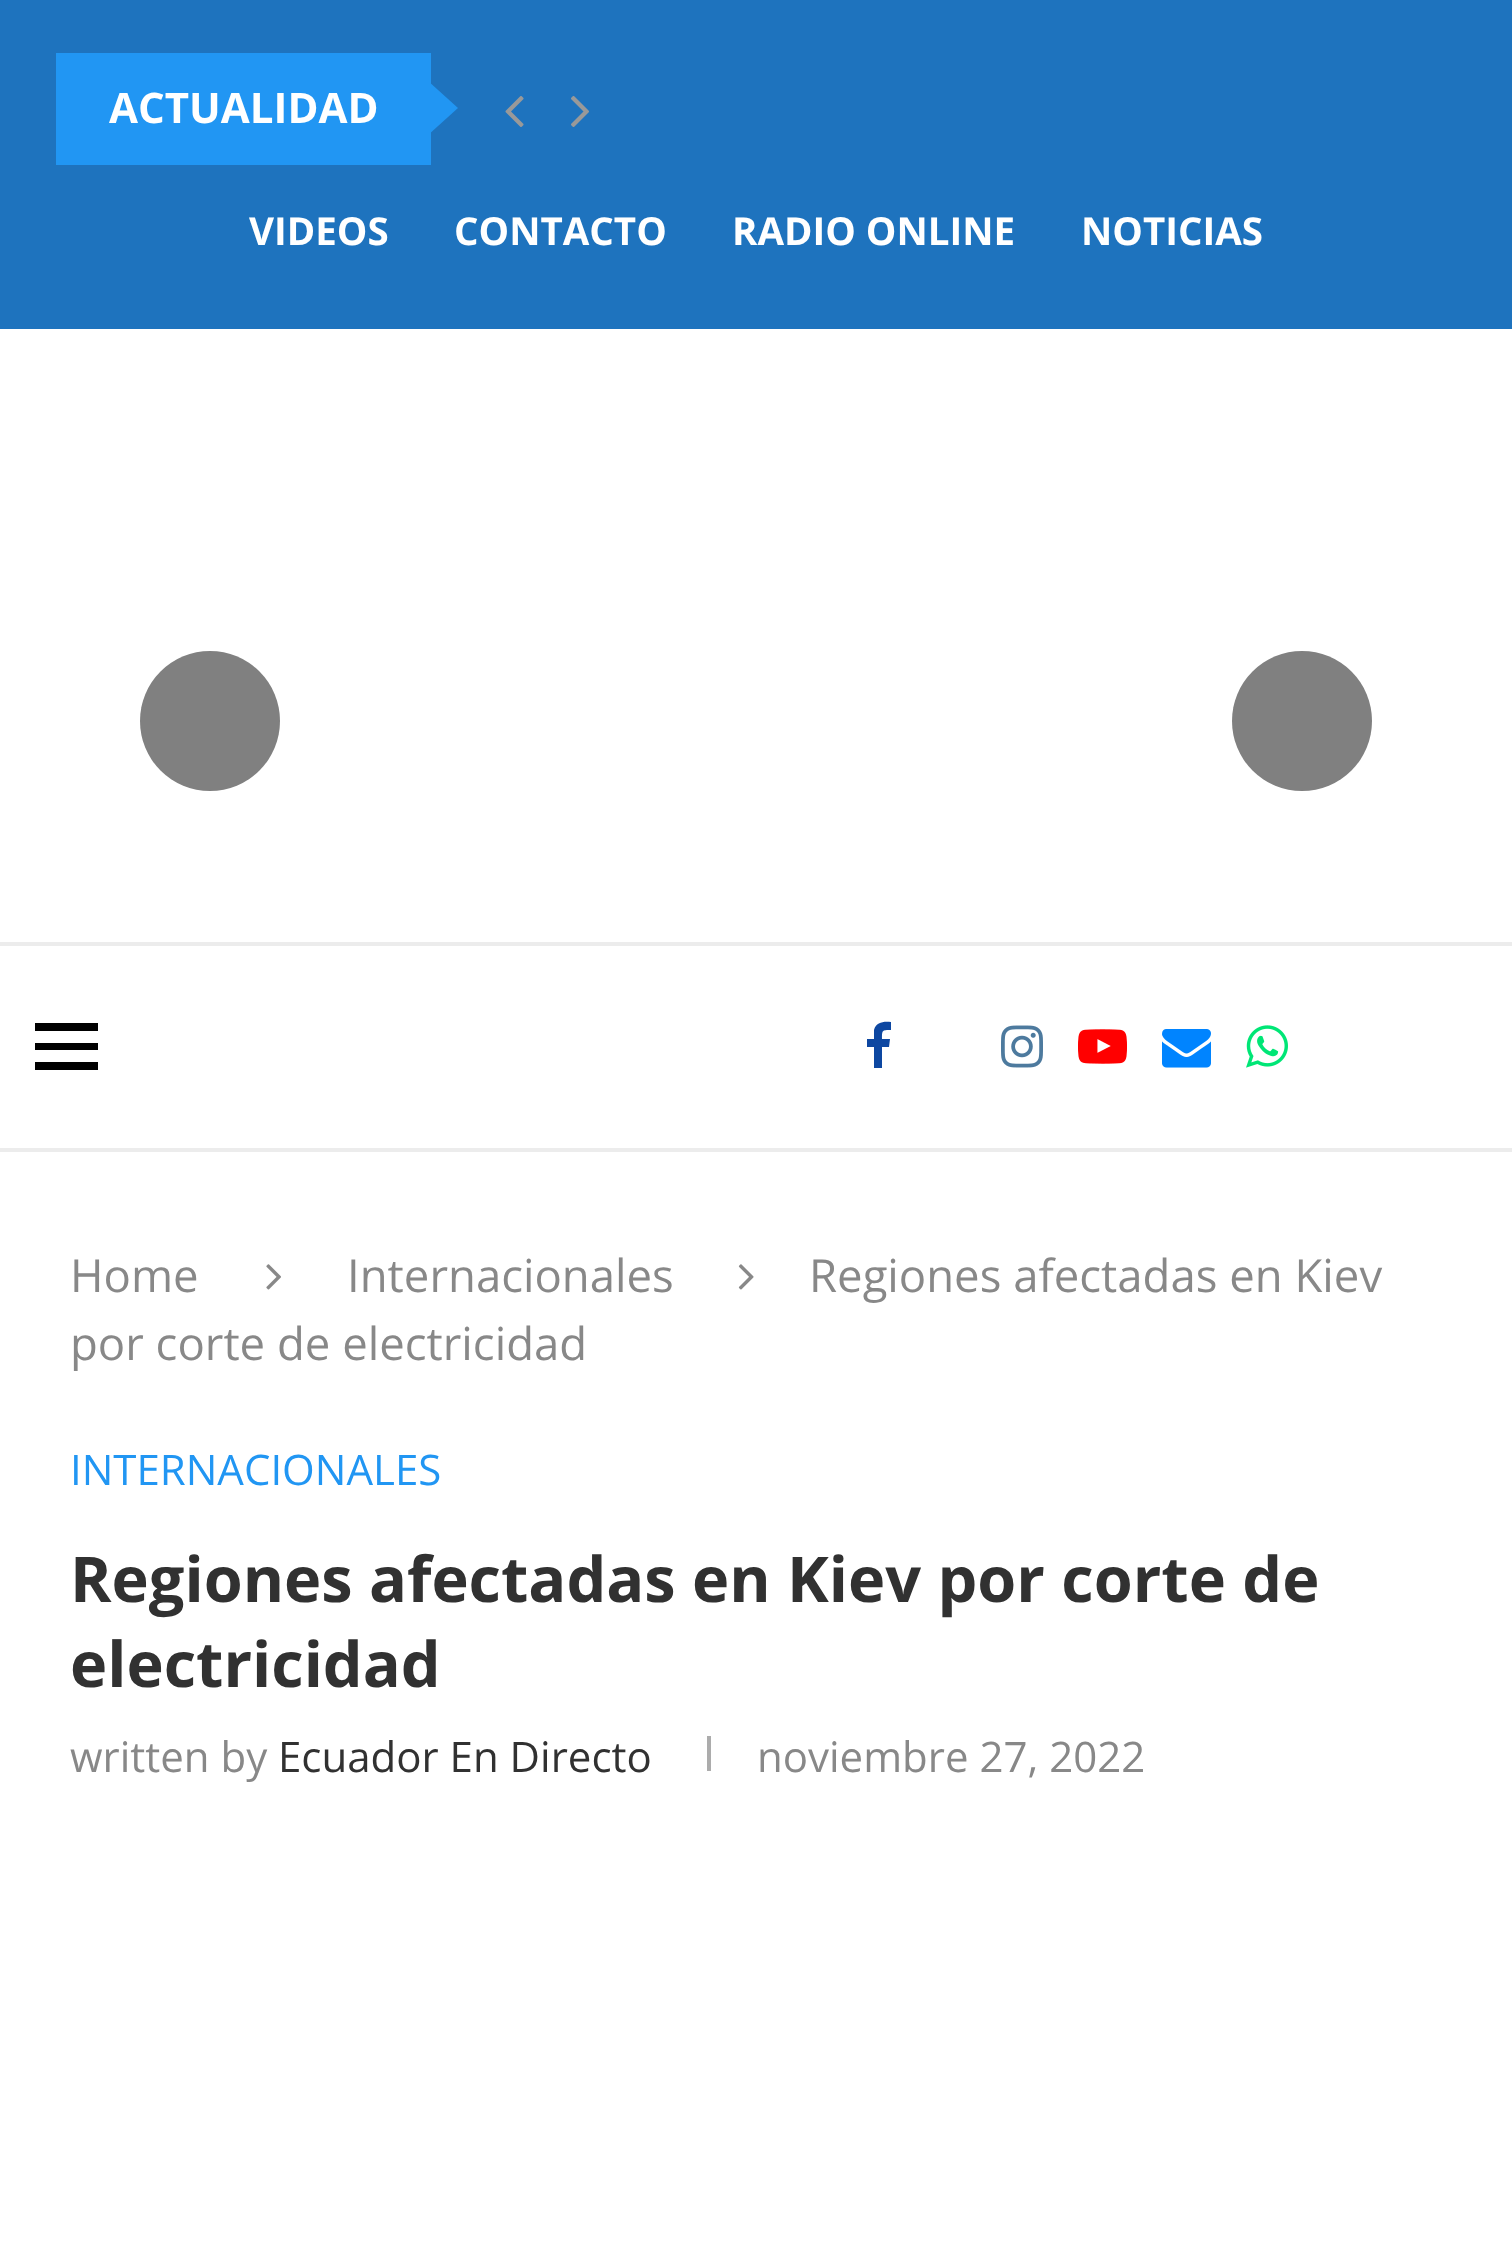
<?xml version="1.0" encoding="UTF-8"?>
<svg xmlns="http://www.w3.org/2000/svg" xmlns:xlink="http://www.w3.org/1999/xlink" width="1512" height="2254">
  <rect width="100%" height="100%" fill="#ffffff" />
  <rect width="1512" height="329" fill="#1e73be" />
  <rect x="56" y="53" width="375" height="112" fill="#2196f3" />
  <path d="M 427 136 v -56 l 31 28 z" fill="#2196f3" />
  <image x="505" y="96" width="19" height="31" xlink:href="image1.png" />
  <image x="571" y="96" width="18" height="31" xlink:href="image2.png" />
  <circle cx="210" cy="721" r="70" fill="#808080" />
  <circle cx="1302" cy="721" r="70" fill="#808080" />
  <rect y="942" width="1512" height="4" fill="#ececec" />
  <rect y="1148" width="1512" height="4" fill="#ececec" />
  <rect x="35" y="1023" width="63" height="8" fill="#000000" />
  <rect x="35" y="1043" width="63" height="7" fill="#000000" />
  <rect x="35" y="1062" width="63" height="8" fill="#000000" />
  <path d="M 891 1022 c -7 -1 -15 0 -17 8 v 9 h -7 v 8 h 7 v 21 h 8 v -21 h 7 l 1 -8 h -8 c 0 -9 0 -9 9 -9 z" fill="#0d47a1" />
  <image x="1001" y="1025" width="42" height="43" xlink:href="image3.png" />
  <image x="1078" y="1029" width="49" height="35" xlink:href="image4.png" />
  <image x="1162" y="1029" width="49" height="39" xlink:href="image5.png" />
  <image x="1246" y="1025" width="42" height="43" xlink:href="image6.png" />
  <image x="266" y="1264" width="15" height="26" xlink:href="image7.png" />
  <image x="738" y="1264" width="16" height="26" xlink:href="image8.png" />
  <rect x="707" y="1736" width="4" height="35" fill="#acacac" />
  <text x="109" y="123" style="font-family: Open Sans; font-size: 42px; font-weight: bold; fill: #ffffff">ACTUALIDAD</text>
  <text x="249" y="245" style="font-family: Open Sans; font-size: 38.5px; font-weight: bold; fill: #ffffff">VIDEOS</text>
  <text x="454" y="245" style="font-family: Open Sans; font-size: 38.5px; font-weight: bold; fill: #ffffff">CONTACTO</text>
  <text x="732" y="245" style="font-family: Open Sans; font-size: 38.5px; font-weight: bold; fill: #ffffff">RADIO ONLINE</text>
  <text x="1081" y="245" style="font-family: Open Sans; font-size: 38.5px; font-weight: bold; fill: #ffffff">NOTICIAS</text>
  <text x="70" y="1292" style="font-family: Open Sans; font-size: 45.5px; fill: #888888">Home</text>
  <text x="347" y="1292" style="font-family: Open Sans; font-size: 45.5px; fill: #888888">Internacionales</text>
  <text x="809" y="1292" style="font-family: Open Sans; font-size: 45.5px; fill: #888888">Regiones afectadas en Kiev</text>
  <text x="70" y="1360" style="font-family: Open Sans; font-size: 45.5px; fill: #888888">por corte de electricidad</text>
  <text x="70" y="1485" style="font-family: Open Sans; font-size: 42px; fill: #2196f3">INTERNACIONALES</text>
  <text x="70" y="1602" style="font-family: Open Sans; font-size: 63px; font-weight: bold; fill: #313131">Regiones afectadas en Kiev por corte de</text>
  <text x="70" y="1687" style="font-family: Open Sans; font-size: 63px; font-weight: bold; fill: #313131">electricidad</text>
  <text x="70" y="1772" style="font-family: Open Sans; font-size: 42px; fill: #888888">written by</text>
  <text x="278" y="1772" style="font-family: Open Sans; font-size: 42px; fill: #313131">Ecuador En Directo</text>
  <text x="757" y="1772" style="font-family: Open Sans; font-size: 42px; fill: #888888">noviembre 27, 2022</text>
</svg>
